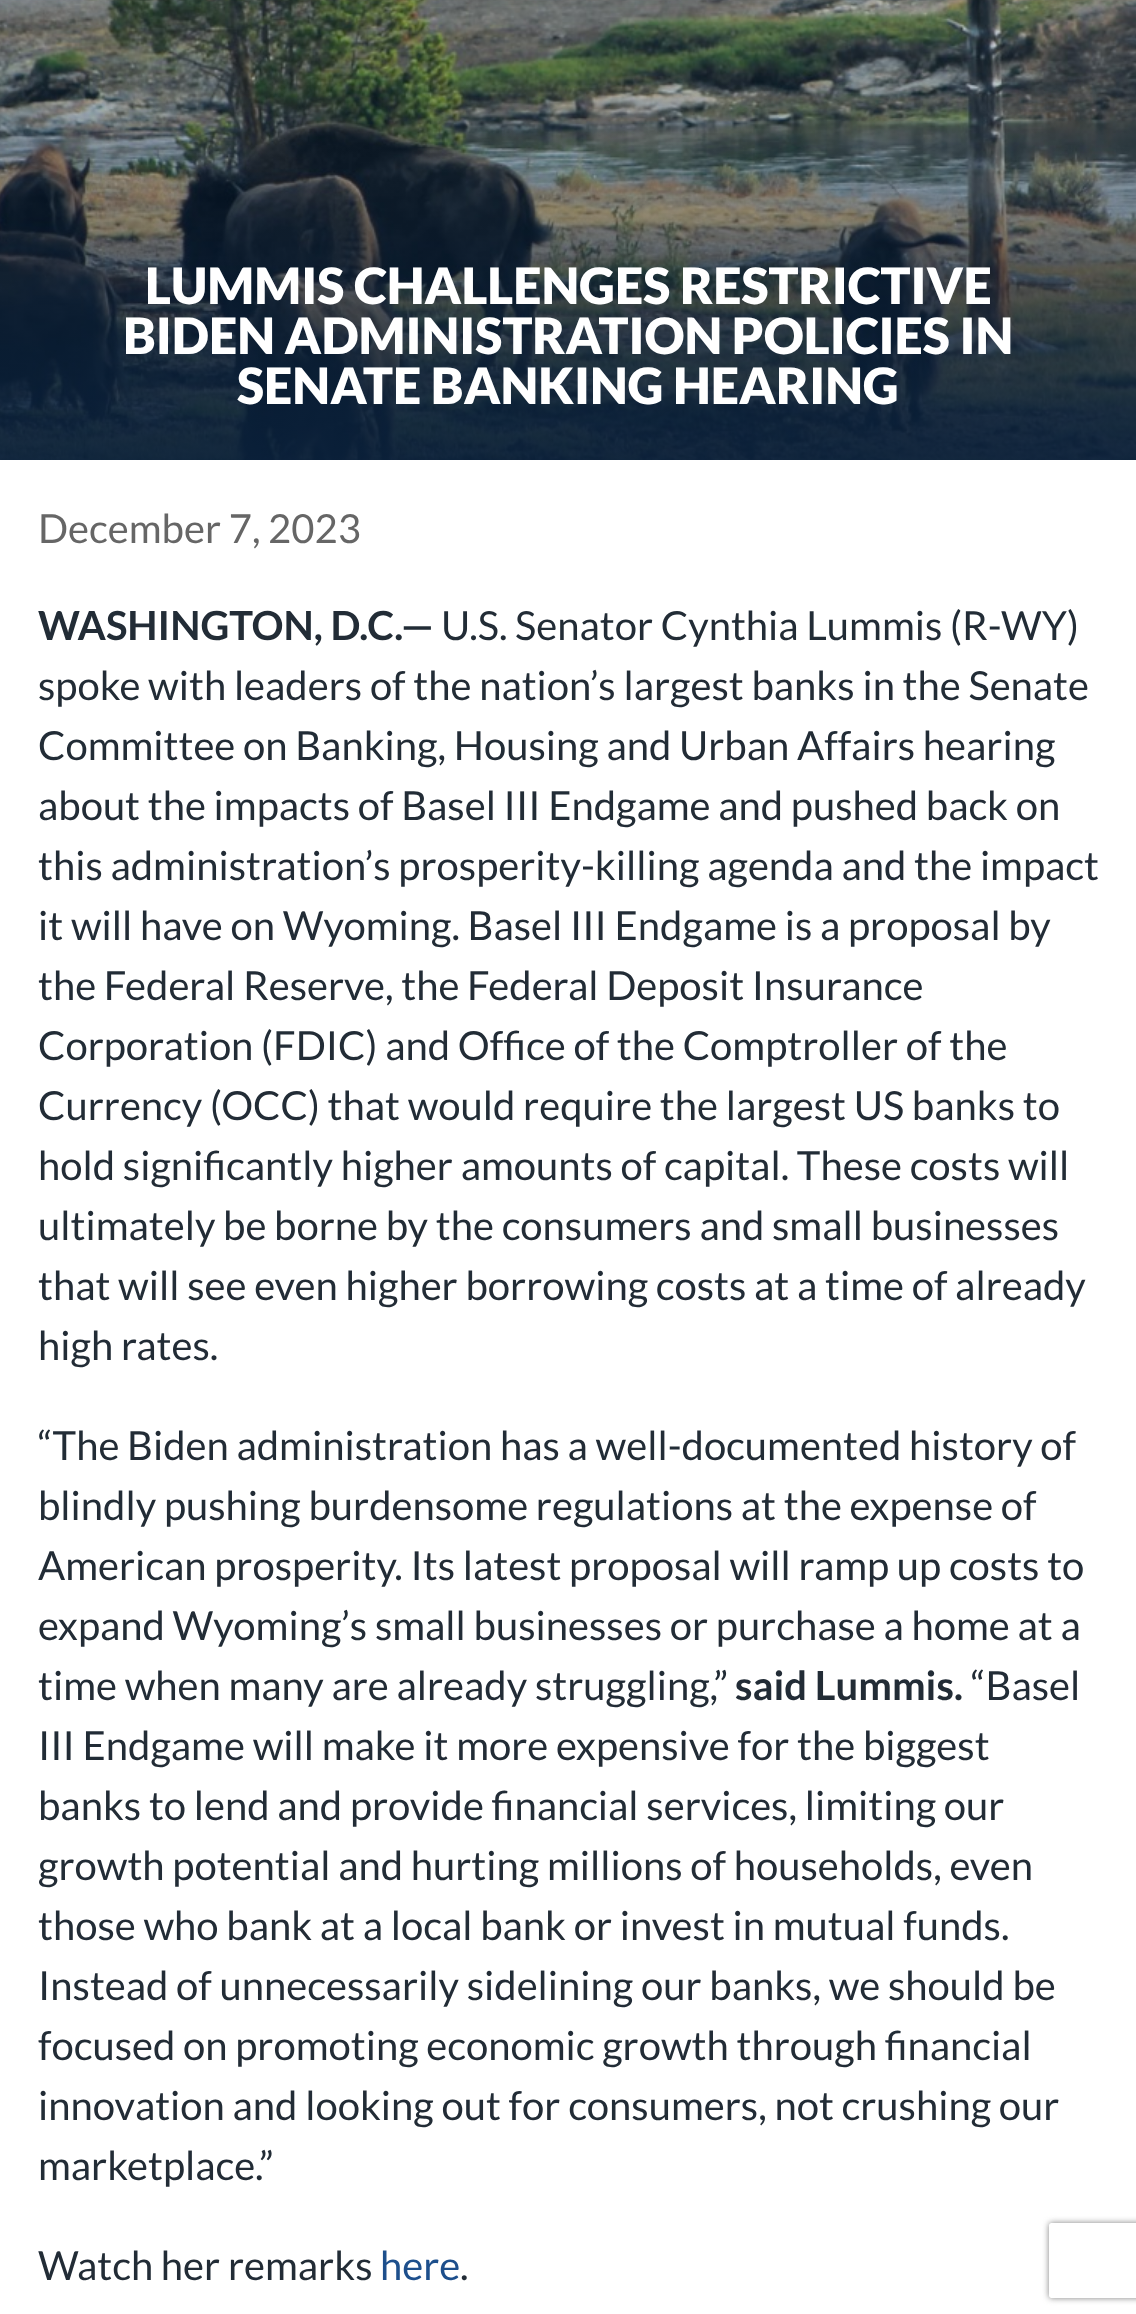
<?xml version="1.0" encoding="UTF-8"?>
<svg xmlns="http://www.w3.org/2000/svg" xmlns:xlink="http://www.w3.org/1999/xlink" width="1136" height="2314">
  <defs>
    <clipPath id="clip1"><path d="M 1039 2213 h 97 v 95 h -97 z m 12.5 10 h 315 c 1.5 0 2.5 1 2.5 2.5 v 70 c 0 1.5 -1 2.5 -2.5 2.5 h -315 c -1.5 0 -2.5 -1 -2.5 -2.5 v -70 c 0 -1.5 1 -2.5 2.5 -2.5 z" clip-rule="evenodd" /></clipPath>
  </defs>
  <rect width="100%" height="100%" fill="#ffffff" />
  <image x="0" y="0" width="1136" height="460" xlink:href="image1.png" />
  <g clip-path="url(#clip1)">
    <rect x="1049" y="2223" width="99" height="75" rx="2.5" fill="#808080" filter="blur(3px)" />
  </g>
  <text x="145" y="304" style="font-family: Lato; font-size: 50px; font-weight: 900; fill: #ffffff">LUMMIS CHALLENGES RESTRICTIVE</text>
  <text x="123" y="354" style="font-family: Lato; font-size: 50px; font-weight: 900; fill: #ffffff">BIDEN ADMINISTRATION POLICIES IN</text>
  <text x="237" y="404" style="font-family: Lato; font-size: 50px; font-weight: 900; fill: #ffffff">SENATE BANKING HEARING</text>
  <text x="38" y="543" style="font-family: Lato; font-size: 40px; fill: #666666">December 7, 2023</text>
  <text x="38" y="640" style="font-family: Lato; font-size: 40px; font-weight: bold; fill: #222c36">WASHINGTON, D.C.—</text>
  <text x="441" y="640" style="font-family: Lato; font-size: 40px; fill: #222c36">U.S. Senator Cynthia Lummis (R-WY)</text>
  <text x="38" y="700" style="font-family: Lato; font-size: 40px; fill: #222c36">spoke with leaders of the nation’s largest banks in the Senate</text>
  <text x="38" y="760" style="font-family: Lato; font-size: 40px; fill: #222c36">Committee on Banking, Housing and Urban Affairs hearing</text>
  <text x="38" y="820" style="font-family: Lato; font-size: 40px; fill: #222c36">about the impacts of Basel III Endgame and pushed back on</text>
  <text x="38" y="880" style="font-family: Lato; font-size: 40px; fill: #222c36">this administration’s prosperity-killing agenda and the impact</text>
  <text x="38" y="940" style="font-family: Lato; font-size: 40px; fill: #222c36">it will have on Wyoming. Basel III Endgame is a proposal by</text>
  <text x="38" y="1000" style="font-family: Lato; font-size: 40px; fill: #222c36">the Federal Reserve, the Federal Deposit Insurance</text>
  <text x="38" y="1060" style="font-family: Lato; font-size: 40px; fill: #222c36">Corporation (FDIC) and Office of the Comptroller of the</text>
  <text x="38" y="1120" style="font-family: Lato; font-size: 40px; fill: #222c36">Currency (OCC) that would require the largest US banks to</text>
  <text x="38" y="1180" style="font-family: Lato; font-size: 40px; fill: #222c36">hold significantly higher amounts of capital. These costs will</text>
  <text x="38" y="1240" style="font-family: Lato; font-size: 40px; fill: #222c36">ultimately be borne by the consumers and small businesses</text>
  <text x="38" y="1300" style="font-family: Lato; font-size: 40px; fill: #222c36">that will see even higher borrowing costs at a time of already</text>
  <text x="38" y="1360" style="font-family: Lato; font-size: 40px; fill: #222c36">high rates.</text>
  <text x="38" y="1460" style="font-family: Lato; font-size: 40px; fill: #222c36">“The Biden administration has a well-documented history of</text>
  <text x="38" y="1520" style="font-family: Lato; font-size: 40px; fill: #222c36">blindly pushing burdensome regulations at the expense of</text>
  <text x="38" y="1580" style="font-family: Lato; font-size: 40px; fill: #222c36">American prosperity. Its latest proposal will ramp up costs to</text>
  <text x="38" y="1640" style="font-family: Lato; font-size: 40px; fill: #222c36">expand Wyoming’s small businesses or purchase a home at a</text>
  <text x="38" y="1700" style="font-family: Lato; font-size: 40px; fill: #222c36">time when many are already struggling,”</text>
  <text x="735" y="1700" style="font-family: Lato; font-size: 40px; font-weight: bold; fill: #222c36">said Lummis.</text>
  <text x="971" y="1700" style="font-family: Lato; font-size: 40px; fill: #222c36">“Basel</text>
  <text x="38" y="1760" style="font-family: Lato; font-size: 40px; fill: #222c36">III Endgame will make it more expensive for the biggest</text>
  <text x="38" y="1820" style="font-family: Lato; font-size: 40px; fill: #222c36">banks to lend and provide financial services, limiting our</text>
  <text x="38" y="1880" style="font-family: Lato; font-size: 40px; fill: #222c36">growth potential and hurting millions of households, even</text>
  <text x="38" y="1940" style="font-family: Lato; font-size: 40px; fill: #222c36">those who bank at a local bank or invest in mutual funds.</text>
  <text x="38" y="2000" style="font-family: Lato; font-size: 40px; fill: #222c36">Instead of unnecessarily sidelining our banks, we should be</text>
  <text x="38" y="2060" style="font-family: Lato; font-size: 40px; fill: #222c36">focused on promoting economic growth through financial</text>
  <text x="38" y="2120" style="font-family: Lato; font-size: 40px; fill: #222c36">innovation and looking out for consumers, not crushing our</text>
  <text x="38" y="2180" style="font-family: Lato; font-size: 40px; fill: #222c36">marketplace.”</text>
  <text x="38" y="2280" style="font-family: Lato; font-size: 40px; fill: #222c36">Watch her remarks</text>
  <text x="380" y="2280" style="font-family: Lato; font-size: 40px; fill: #1d4f8c">here</text>
  <text x="460" y="2280" style="font-family: Lato; font-size: 40px; fill: #222c36">.</text>
</svg>
